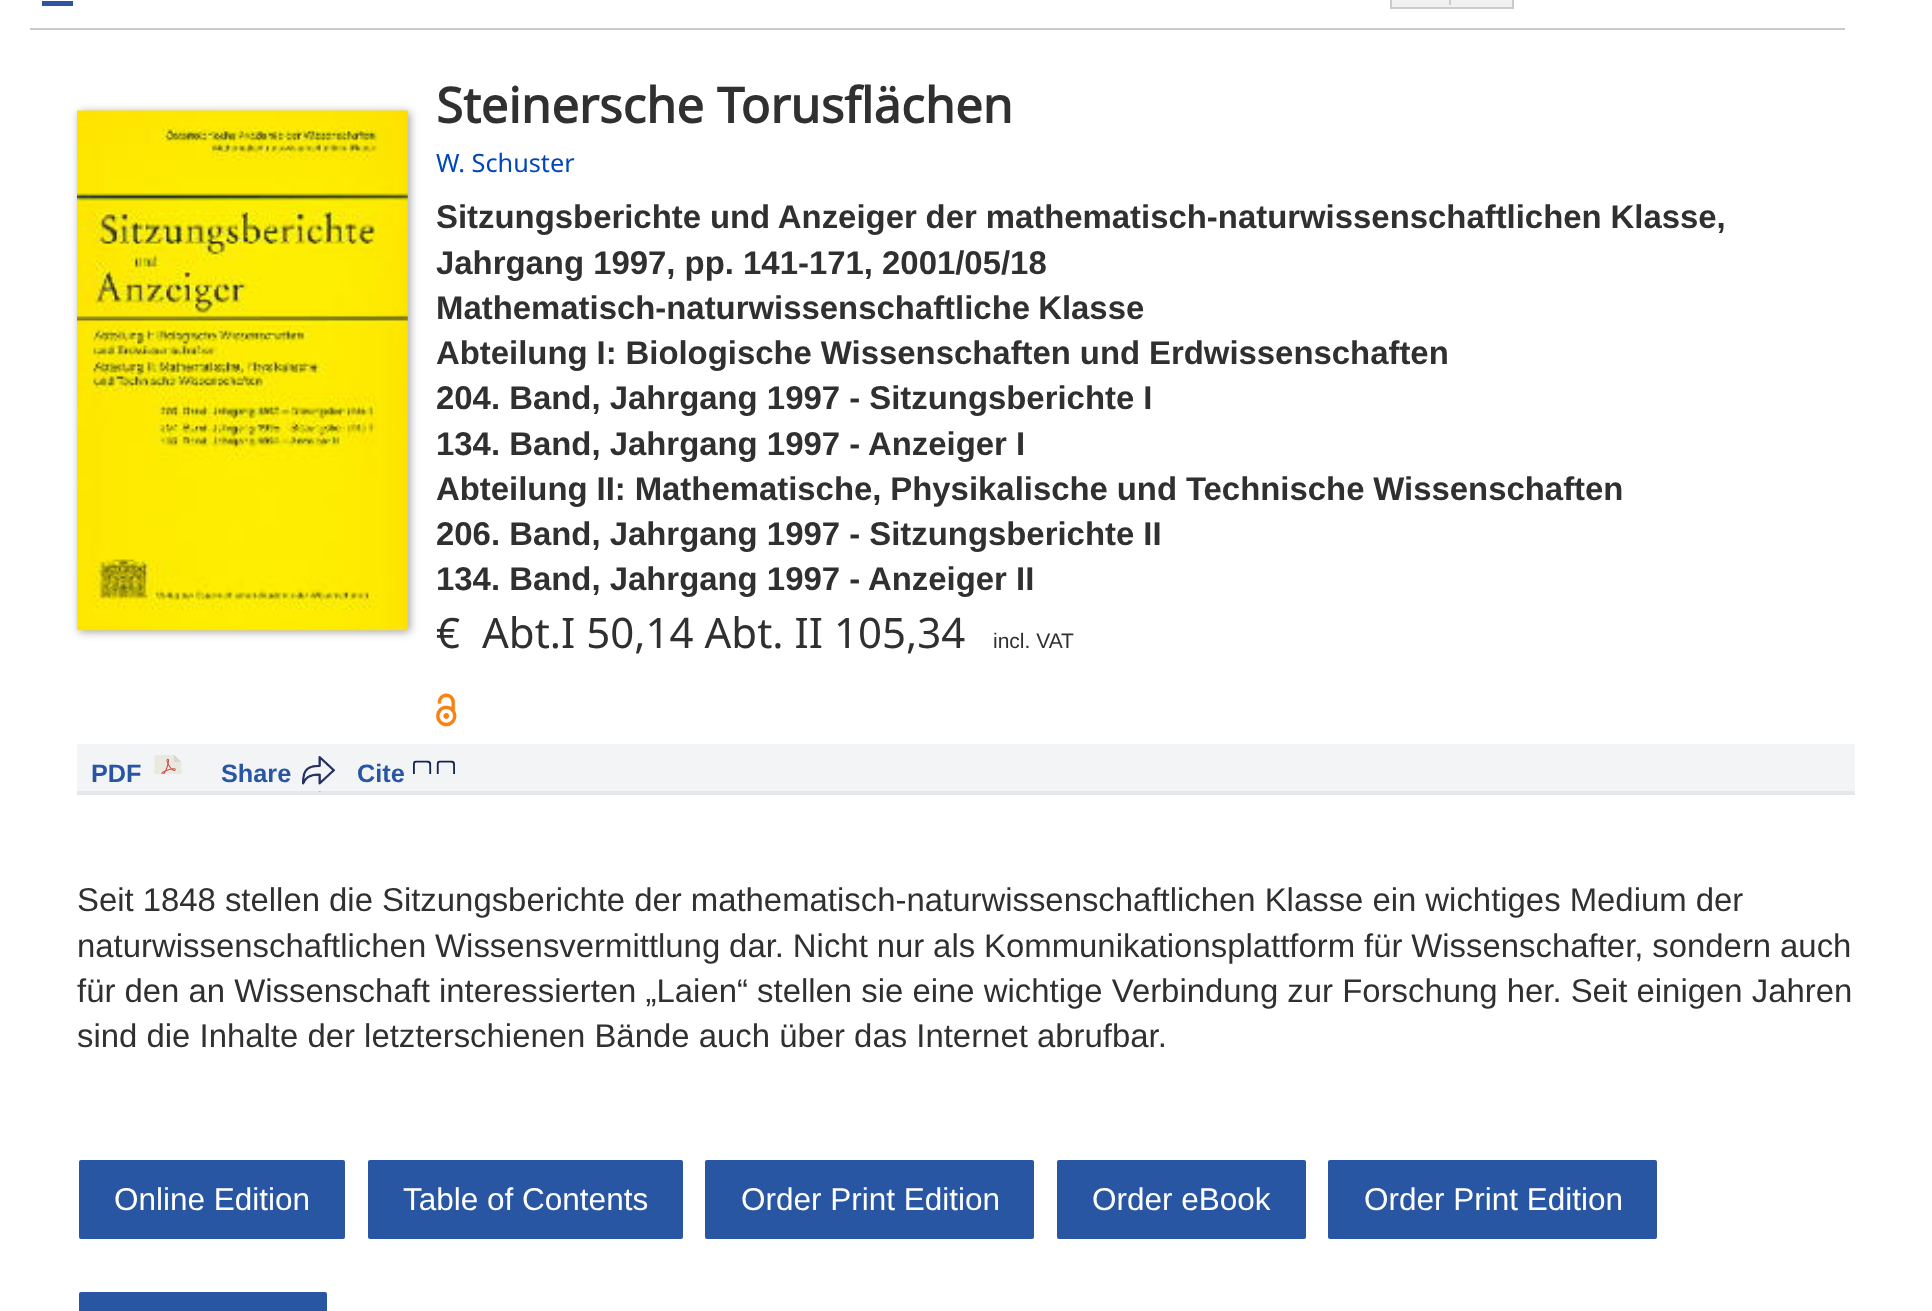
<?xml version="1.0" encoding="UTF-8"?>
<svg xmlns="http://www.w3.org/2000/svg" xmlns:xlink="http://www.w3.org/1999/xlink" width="1932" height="1311">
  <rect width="100%" height="100%" fill="#ffffff" />
  <rect x="1391" y="-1" width="122" height="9" fill="#f1f1f1" stroke="#cbcbcb" stroke-width="2" />
  <rect x="1449" width="2" height="5" fill="#cbcbcb" />
  <rect x="30" y="28" width="1815" height="2" fill="#cbcbcb" />
  <rect x="42" y="1" width="31" height="5" fill="#2e55a3" />
  <rect x="79" y="112" width="331" height="520" fill="#000000" fill-opacity="0.35" filter="blur(4.5px)" />
  <image x="77" y="110" width="331" height="521" xlink:href="image1.png" />
  <image x="435" y="693" width="22" height="34" xlink:href="image2.png" />
  <rect x="77" y="744" width="1778" height="47" fill="#f3f4f6" />
  <rect x="77" y="791" width="1778" height="4" fill="#e5e7eb" />
  <image x="154" y="755" width="28" height="19" xlink:href="image3.png" />
  <image x="302" y="756" width="33" height="36" xlink:href="image4.png" />
  <image x="413" y="760" width="42" height="14" xlink:href="image5.png" />
  <rect x="79" y="1160" width="266" height="79" rx="2" fill="#2856a3" />
  <rect x="368" y="1160" width="315" height="79" rx="2" fill="#2856a3" />
  <rect x="705" y="1160" width="329" height="79" rx="2" fill="#2856a3" />
  <rect x="1057" y="1160" width="249" height="79" rx="2" fill="#2856a3" />
  <rect x="1328" y="1160" width="329" height="79" rx="2" fill="#2856a3" />
  <rect x="79" y="1292" width="248" height="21" rx="2" fill="#2856a3" />
  <text x="436" y="123" style="font-family: Noto Sans; font-size: 49px; font-weight: bold; fill: #303030">Steinersche Torusflächen</text>
  <text x="436" y="172" style="font-family: Noto Sans; font-size: 25.25px; fill: #0047bb">W. Schuster</text>
  <text x="436" y="228" word-spacing="-0.25" style="font-family: Liberation Sans; font-size: 32.9px; font-weight: bold; fill: #303030">Sitzungsberichte und Anzeiger der mathematisch-naturwissenschaftlichen Klasse,</text>
  <text x="436" y="274" style="font-family: Liberation Sans; font-size: 32.9px; font-weight: bold; fill: #303030">Jahrgang 1997, pp. 141-171, 2001/05/18</text>
  <text x="436" y="319" word-spacing="-1" style="font-family: Liberation Sans; font-size: 32.9px; font-weight: bold; fill: #303030">Mathematisch-naturwissenschaftliche Klasse</text>
  <text x="436" y="364" word-spacing="-0.25" style="font-family: Liberation Sans; font-size: 32.9px; font-weight: bold; fill: #303030">Abteilung I: Biologische Wissenschaften und Erdwissenschaften</text>
  <text x="436" y="409" style="font-family: Liberation Sans; font-size: 32.9px; font-weight: bold; fill: #303030">204. Band, Jahrgang 1997 - Sitzungsberichte I</text>
  <text x="436" y="455" style="font-family: Liberation Sans; font-size: 32.9px; font-weight: bold; fill: #303030">134. Band, Jahrgang 1997 - Anzeiger I</text>
  <text x="436" y="500" word-spacing="-0.25" style="font-family: Liberation Sans; font-size: 32.9px; font-weight: bold; fill: #303030">Abteilung II: Mathematische, Physikalische und Technische Wissenschaften</text>
  <text x="436" y="545" style="font-family: Liberation Sans; font-size: 32.9px; font-weight: bold; fill: #303030">206. Band, Jahrgang 1997 - Sitzungsberichte II</text>
  <text x="436" y="590" style="font-family: Liberation Sans; font-size: 32.9px; font-weight: bold; fill: #303030">134. Band, Jahrgang 1997 - Anzeiger II</text>
  <text x="436" y="648" style="font-family: Noto Sans; font-size: 42px; fill: #303030">€</text>
  <text x="482" y="648" style="font-family: Noto Sans; font-size: 42px; fill: #303030">Abt.I 50,14 Abt. II 105,34</text>
  <text x="993" y="648" style="font-family: Liberation Sans; font-size: 21px; fill: #303030">incl. VAT</text>
  <text x="91" y="782" style="font-family: Liberation Sans; font-size: 25.25px; font-weight: bold; fill: #2856a3">PDF</text>
  <text x="221" y="782" style="font-family: Liberation Sans; font-size: 25.25px; font-weight: bold; fill: #2856a3">Share</text>
  <text x="357" y="782" style="font-family: Liberation Sans; font-size: 25.25px; font-weight: bold; fill: #2856a3">Cite</text>
  <text x="77" y="911" word-spacing="-0.1" style="font-family: Liberation Sans; font-size: 32.9px; fill: #303030">Seit 1848 stellen die Sitzungsberichte der mathematisch-naturwissenschaftlichen Klasse ein wichtiges Medium der</text>
  <text x="77" y="957" word-spacing="-0.25" style="font-family: Liberation Sans; font-size: 32.9px; fill: #303030">naturwissenschaftlichen Wissensvermittlung dar. Nicht nur als Kommunikationsplattform für Wissenschafter, sondern auch</text>
  <text x="77" y="1002" style="font-family: Liberation Sans; font-size: 32.9px; fill: #303030">für den an Wissenschaft interessierten „Laien“ stellen sie eine wichtige Verbindung zur Forschung her. Seit einigen Jahren</text>
  <text x="77" y="1047" style="font-family: Liberation Sans; font-size: 32.9px; fill: #303030">sind die Inhalte der letzterschienen Bände auch über das Internet abrufbar.</text>
  <text x="114" y="1210" style="font-family: Liberation Sans; font-size: 31.5px; fill: #ffffff">Online Edition</text>
  <text x="403" y="1210" style="font-family: Liberation Sans; font-size: 31.5px; fill: #ffffff">Table of Contents</text>
  <text x="741" y="1210" style="font-family: Liberation Sans; font-size: 31.5px; fill: #ffffff">Order Print Edition</text>
  <text x="1092" y="1210" style="font-family: Liberation Sans; font-size: 31.5px; fill: #ffffff">Order eBook</text>
  <text x="1364" y="1210" style="font-family: Liberation Sans; font-size: 31.5px; fill: #ffffff">Order Print Edition</text>
</svg>
